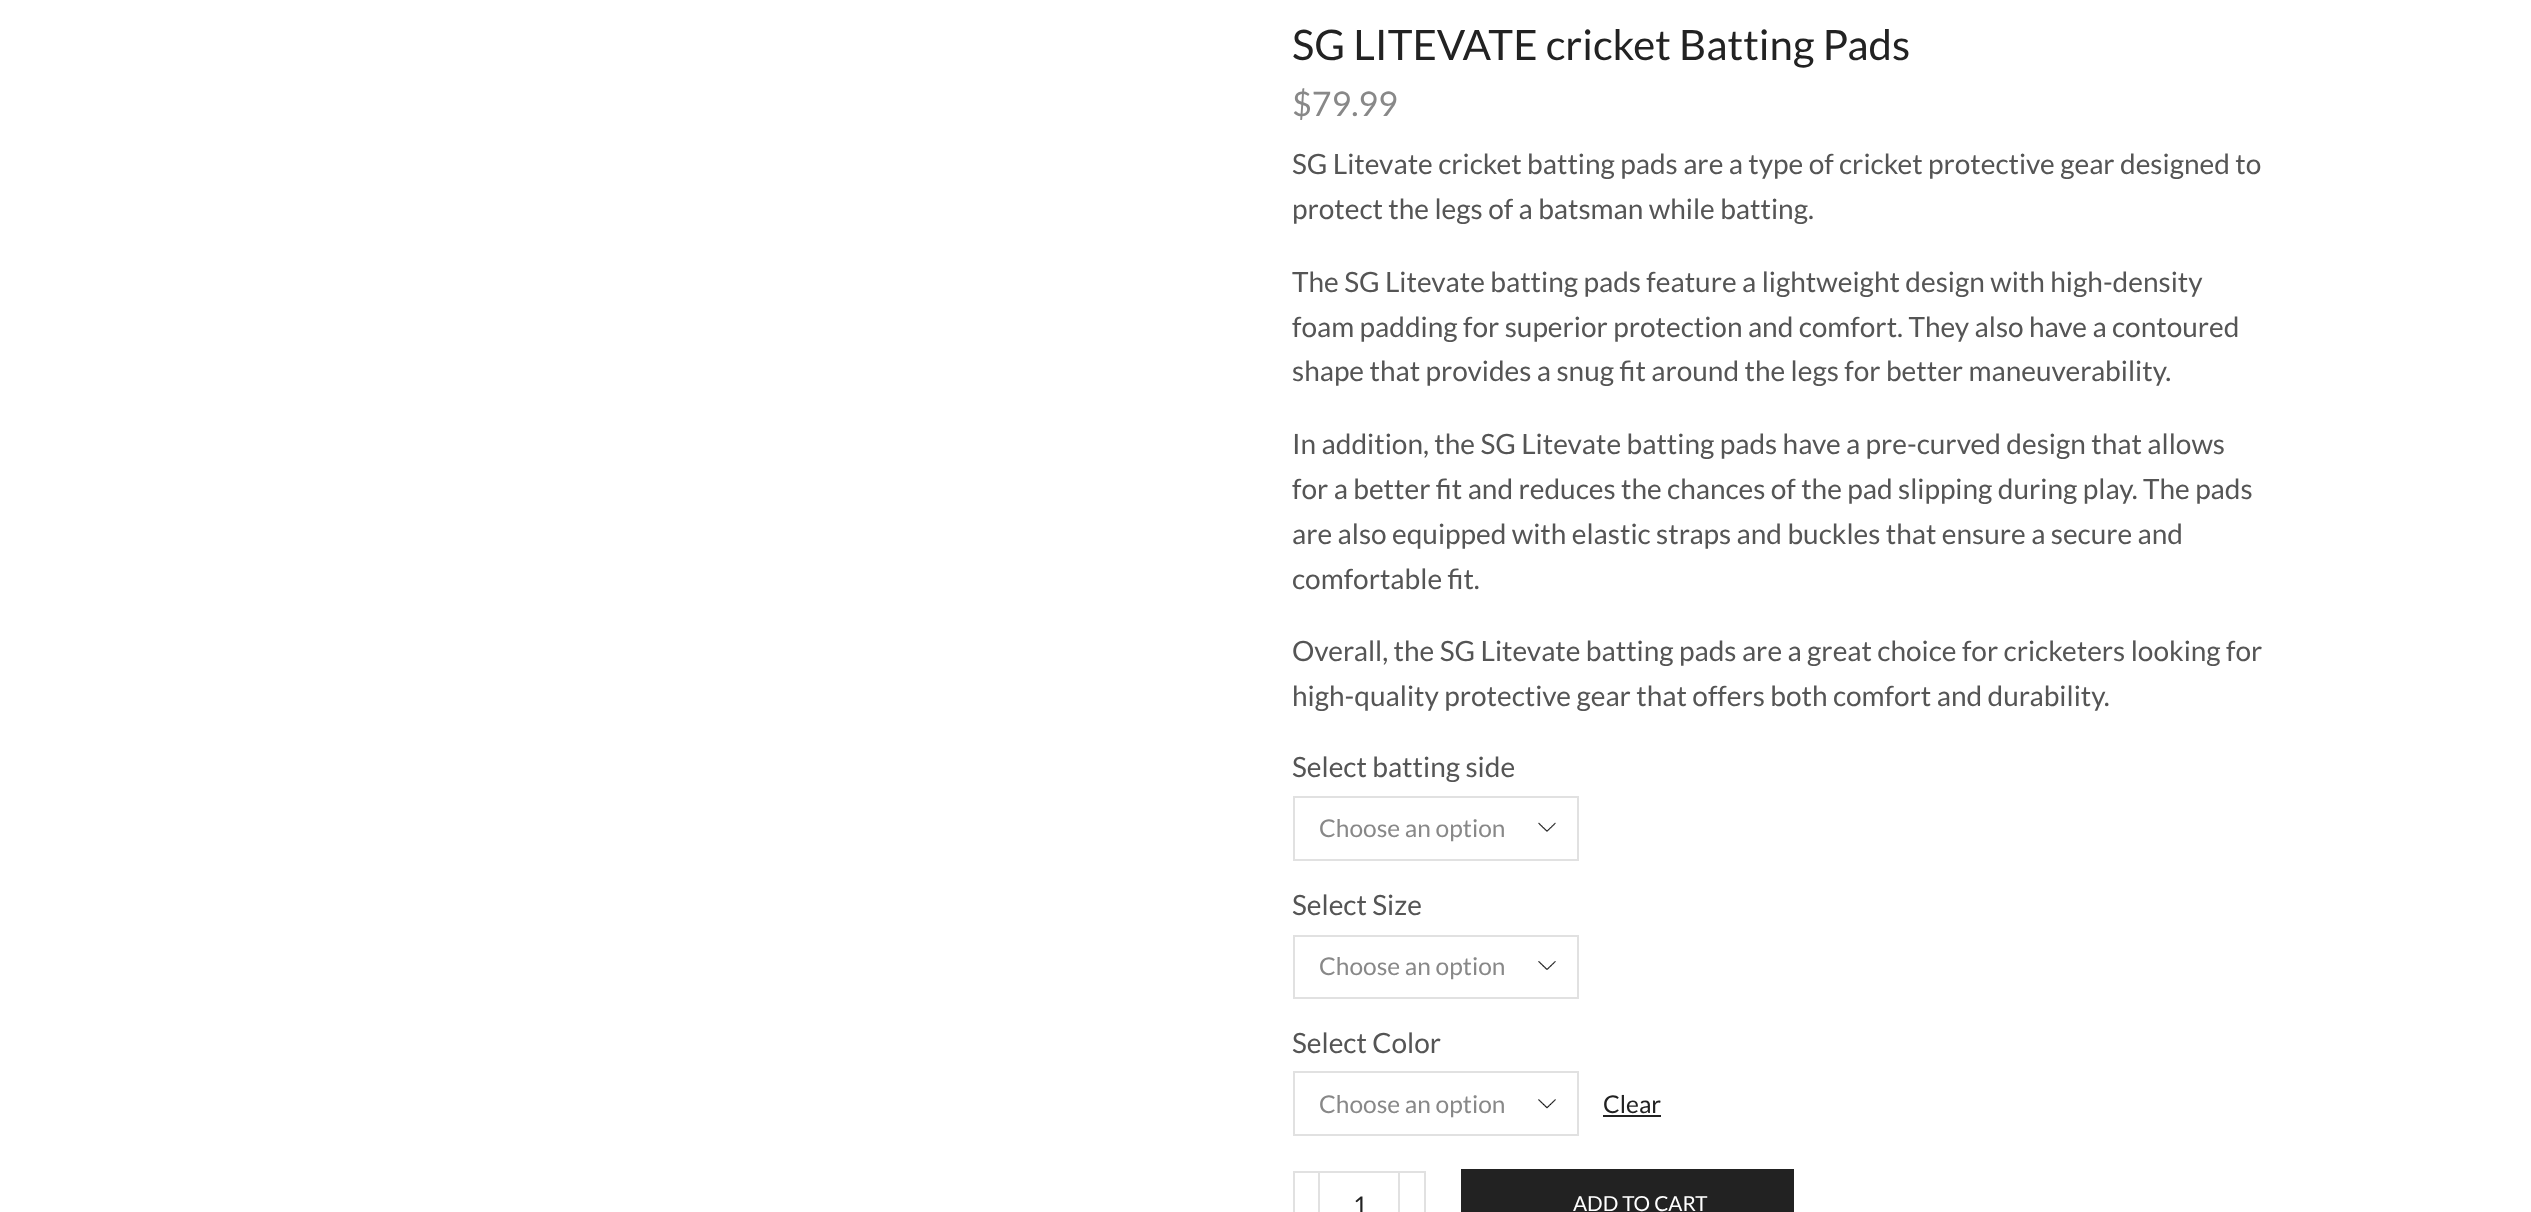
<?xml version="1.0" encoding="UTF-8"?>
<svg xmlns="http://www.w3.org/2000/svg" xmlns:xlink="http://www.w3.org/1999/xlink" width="2531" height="1212">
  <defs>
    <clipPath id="clip1"><rect x="1320" y="803" width="187" height="49" /></clipPath>
    <clipPath id="clip2"><rect x="1320" y="942" width="187" height="49" /></clipPath>
    <clipPath id="clip3"><rect x="1320" y="1080" width="187" height="49" /></clipPath>
  </defs>
  <rect width="100%" height="100%" fill="#ffffff" />
  <image x="1538" y="822" width="18" height="10" xlink:href="image1.png" />
  <rect x="1294" y="797" width="284" height="63" fill="none" stroke="#e1e1e1" stroke-width="2" />
  <image x="1538" y="961" width="18" height="9" xlink:href="image2.png" />
  <rect x="1294" y="936" width="284" height="62" fill="none" stroke="#e1e1e1" stroke-width="2" />
  <image x="1538" y="1099" width="18" height="10" xlink:href="image3.png" />
  <rect x="1294" y="1072" width="284" height="63" fill="none" stroke="#e1e1e1" stroke-width="2" />
  <rect x="1603" y="1115" width="58" height="2" fill="#222222" />
  <rect x="1294" y="1172" width="25" height="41" fill="none" stroke="#e1e1e1" stroke-width="2" />
  <rect x="1320" y="1171" width="78" height="2" fill="#e1e1e1" />
  <rect x="1399" y="1172" width="26" height="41" fill="none" stroke="#e1e1e1" stroke-width="2" />
  <rect x="1461" y="1169" width="333" height="43" fill="#222222" />
  <text x="1292" y="60" style="font-family: Lato; font-size: 42px; fill: #222222">SG LITEVATE cricket Batting Pads</text>
  <text x="1292" y="116" style="font-family: Lato; font-size: 34px; fill: #888888">$79.99</text>
  <text x="1292" y="174" style="font-family: Lato; font-size: 28px; fill: #555555">SG Litevate cricket batting pads are a type of cricket protective gear designed to</text>
  <text x="1292" y="219" style="font-family: Lato; font-size: 28px; fill: #555555">protect the legs of a batsman while batting.</text>
  <text x="1292" y="292" style="font-family: Lato; font-size: 28px; fill: #555555">The SG Litevate batting pads feature a lightweight design with high-density</text>
  <text x="1292" y="337" style="font-family: Lato; font-size: 28px; fill: #555555">foam padding for superior protection and comfort. They also have a contoured</text>
  <text x="1292" y="381" style="font-family: Lato; font-size: 28px; fill: #555555">shape that provides a snug fit around the legs for better maneuverability.</text>
  <text x="1292" y="454" style="font-family: Lato; font-size: 28px; fill: #555555">In addition, the SG Litevate batting pads have a pre-curved design that allows</text>
  <text x="1292" y="499" style="font-family: Lato; font-size: 28px; fill: #555555">for a better fit and reduces the chances of the pad slipping during play. The pads</text>
  <text x="1292" y="544" style="font-family: Lato; font-size: 28px; fill: #555555">are also equipped with elastic straps and buckles that ensure a secure and</text>
  <text x="1292" y="589" style="font-family: Lato; font-size: 28px; fill: #555555">comfortable fit.</text>
  <text x="1292" y="661" style="font-family: Lato; font-size: 28px; fill: #555555">Overall, the SG Litevate batting pads are a great choice for cricketers looking for</text>
  <text x="1292" y="706" style="font-family: Lato; font-size: 28px; fill: #555555">high-quality protective gear that offers both comfort and durability.</text>
  <text x="1292" y="777" style="font-family: Lato; font-size: 28px; fill: #555555">Select batting side</text>
  <g clip-path="url(#clip1)">
    <text x="1319" y="837" style="font-family: Lato; font-size: 24.5px; fill: #888888">Choose an option</text>
  </g>
  <text x="1292" y="915" style="font-family: Lato; font-size: 28px; fill: #555555">Select Size</text>
  <g clip-path="url(#clip2)">
    <text x="1319" y="975" style="font-family: Lato; font-size: 24.5px; fill: #888888">Choose an option</text>
  </g>
  <text x="1292" y="1053" style="font-family: Lato; font-size: 28px; fill: #555555">Select Color</text>
  <g clip-path="url(#clip3)">
    <text x="1319" y="1113" style="font-family: Lato; font-size: 24.5px; fill: #888888">Choose an option</text>
  </g>
  <text x="1603" y="1113" style="font-family: Lato; font-size: 24.5px; fill: #222222">Clear</text>
  <text x="1353" y="1214" style="font-family: Lato; font-size: 24.5px; fill: #222222">1</text>
  <text x="1573" y="1211" style="font-family: Lato; font-size: 20.75px; fill: #ffffff">ADD TO CART</text>
</svg>
